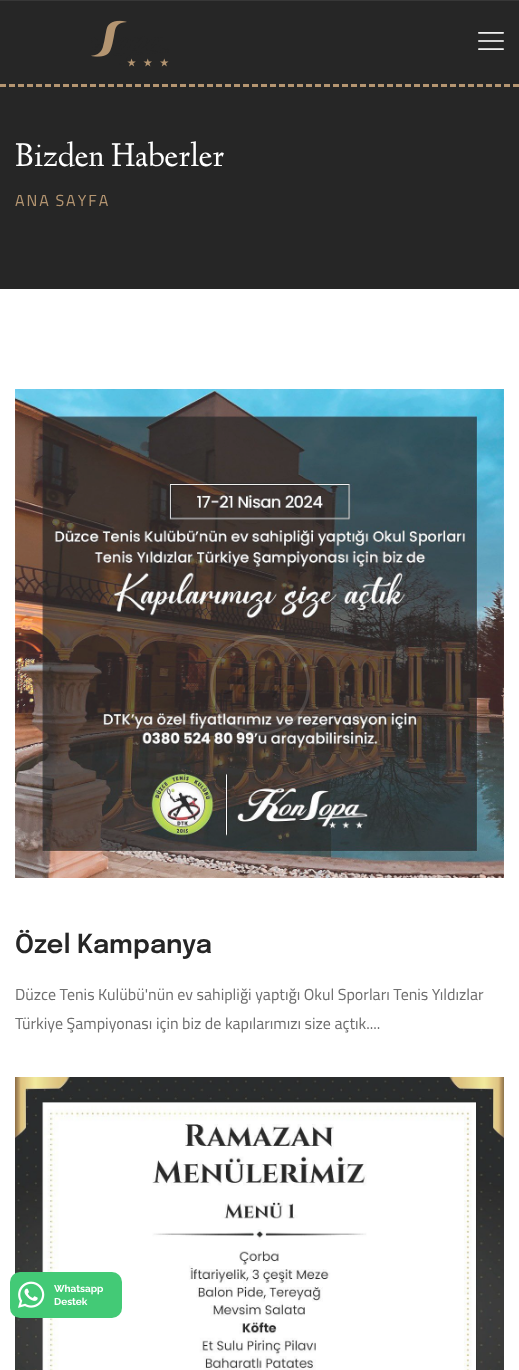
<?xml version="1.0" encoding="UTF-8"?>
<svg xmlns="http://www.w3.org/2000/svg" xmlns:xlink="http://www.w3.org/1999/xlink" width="519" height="1370">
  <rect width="100%" height="100%" fill="#ffffff" />
  <rect width="519" height="1" fill="#373737" />
  <rect y="1" width="519" height="288" fill="#262626" />
  <image x="91" y="20" width="78" height="47" xlink:href="image1.png" />
  <image x="478" y="32" width="26" height="18" xlink:href="image2.png" />
  <path d="M 0 85.5 h 519" fill="none" stroke="#b49571" stroke-width="3" stroke-dasharray="6 3" />
  <image x="15" y="389" width="489" height="489" xlink:href="image4.png" />
  <circle cx="260" cy="685" r="48.5" fill="none" stroke="#ebebec" stroke-opacity="0.15" stroke-width="3" />
  <rect x="235" y="635" width="50" height="3" fill="#a78258" fill-opacity="0.15" />
  <image x="220" y="674" width="79" height="24" xlink:href="image3.png" />
  <image x="15" y="1077" width="489" height="293" xlink:href="image5.png" />
  <rect x="10" y="1272" width="112" height="46" rx="10" fill="#43ca76" />
  <image x="18" y="1281" width="27" height="27" xlink:href="image6.png" />
  <text x="15" y="166" style="font-family: Linden Hill; font-size: 34px; fill: #ffffff">Bizden Haberler</text>
  <text x="15" y="206" word-spacing="-1" style="font-family: Cairo; font-size: 16px; letter-spacing: 2px; fill: #b49571">ANA SAYFA</text>
  <text x="15" y="953" style="font-family: Epilogue; font-size: 26px; font-weight: 600; fill: #262626">Özel Kampanya</text>
  <text x="15" y="1000" style="font-family: Cairo; font-size: 16px; fill: #6f6f6f">Düzce Tenis Kulübü'nün ev sahipliği yaptığı Okul Sporları Tenis Yıldızlar</text>
  <text x="15" y="1029" style="font-family: Cairo; font-size: 16px; fill: #6f6f6f">Türkiye Şampiyonası için biz de kapılarımızı size açtık....</text>
  <text x="54" y="1292" style="font-family: Raleway; font-size: 10px; font-weight: bold; fill: #ffffff">Whatsapp</text>
  <text x="54" y="1305" style="font-family: Raleway; font-size: 10px; font-weight: bold; fill: #ffffff">Destek</text>
</svg>
